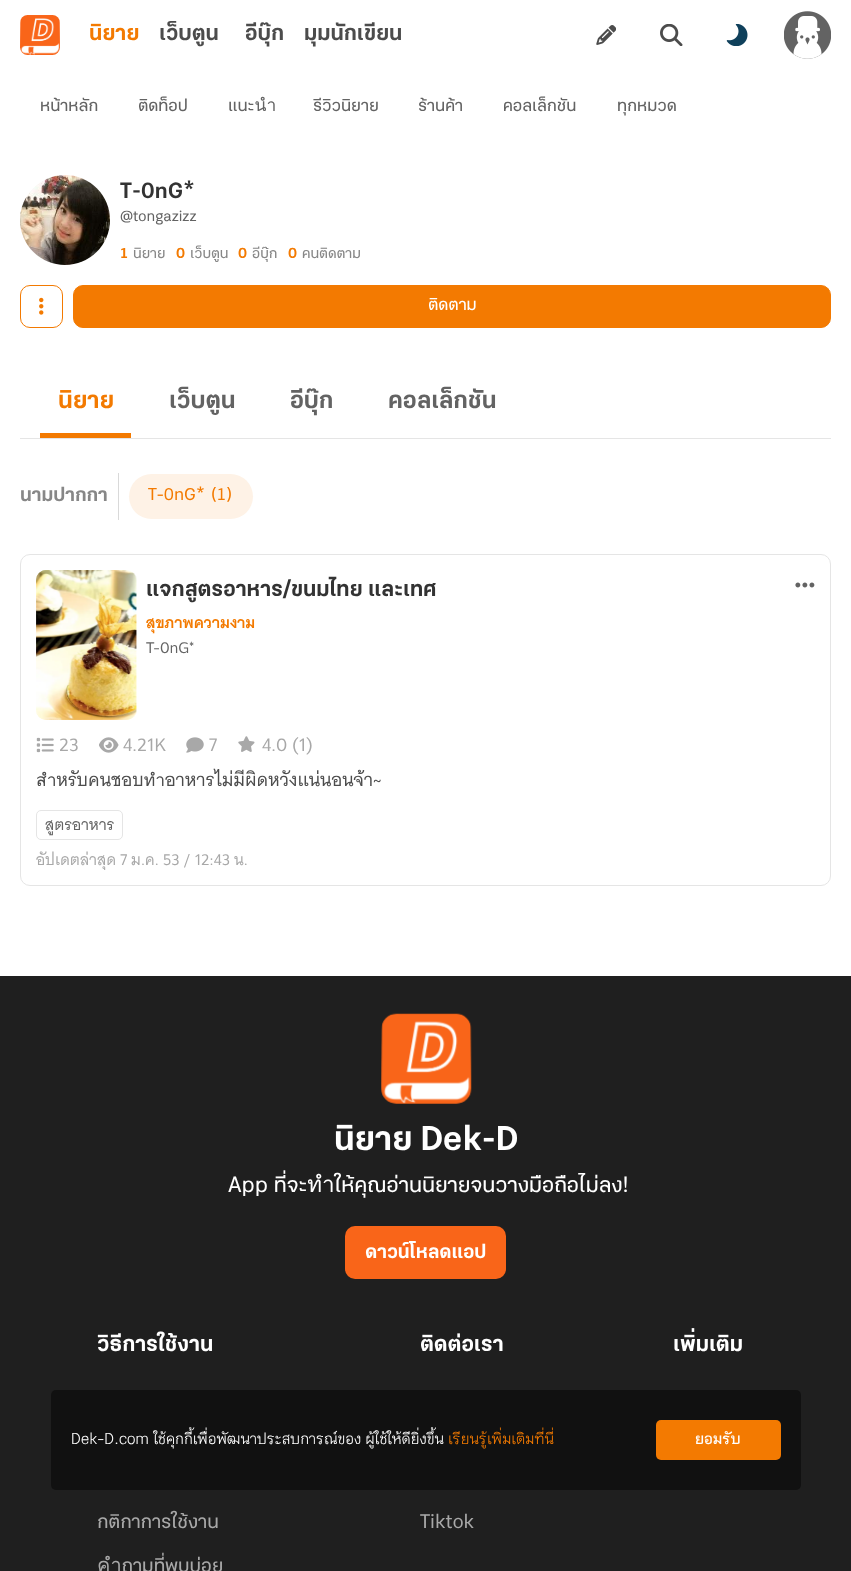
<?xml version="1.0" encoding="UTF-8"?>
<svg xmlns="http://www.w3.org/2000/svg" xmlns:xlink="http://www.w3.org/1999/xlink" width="851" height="1571">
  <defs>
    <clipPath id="clip1"><rect x="36" y="765" width="779" height="30" /></clipPath>
    <clipPath id="clip2"><rect x="36" y="850" width="779" height="20" /></clipPath>
  </defs>
  <rect width="100%" height="100%" fill="#ffffff" />
  <image x="20" y="15" width="40" height="40" xlink:href="image1.png" />
  <image x="596" y="25" width="20" height="20" xlink:href="image2.png" />
  <image x="660" y="24" width="23" height="22" xlink:href="image3.png" />
  <image x="726" y="24" width="22" height="22" xlink:href="image4.png" />
  <image x="784" y="11" width="47" height="48" xlink:href="image5.png" />
  <image x="20" y="175" width="90" height="90" xlink:href="image6.png" />
  <rect x="20.5" y="285.5" width="42" height="42" rx="9.5" fill="none" stroke="#f37a01" />
  <image x="39" y="297" width="5" height="18" xlink:href="image7.png" />
  <rect x="73.5" y="285.5" width="757" height="42" rx="9.5" fill="#f37a01" stroke="#f37a01" />
  <rect x="20" y="438" width="811" height="1" fill="#e5e5e5" />
  <rect x="40" y="433" width="91" height="5" fill="#f37a01" />
  <rect x="118" y="473" width="1" height="47" fill="#d9d9d9" />
  <rect x="129" y="474" width="124" height="45" rx="22.5" fill="#fef2e6" />
  <rect x="20.5" y="554.5" width="810" height="331" rx="9.5" fill="none" stroke="#e5e5e5" />
  <image x="36" y="570" width="101" height="150" xlink:href="image8.png" />
  <image x="36" y="570" width="101" height="150" xlink:href="image9.png" />
  <image x="795" y="582" width="20" height="6" xlink:href="image10.png" />
  <image x="36" y="737" width="18" height="16" xlink:href="image11.png" />
  <image x="99" y="737" width="20" height="16" xlink:href="image12.png" />
  <image x="186" y="737" width="18" height="16" xlink:href="image13.png" />
  <image x="238" y="736" width="17" height="16" xlink:href="image14.png" />
  <rect x="36.5" y="810.5" width="86" height="29" rx="4.5" fill="none" stroke="#e5e5e5" />
  <rect y="976" width="851" height="595" fill="#1f1f1f" />
  <image x="381" y="1013" width="91" height="91" xlink:href="image15.png" />
  <rect x="345" y="1226" width="161" height="53" rx="10" fill="#f96519" />
  <rect x="51" y="1390" width="750" height="100" rx="5" fill="#0f0f0f" fill-opacity="0.85" />
  <rect x="656" y="1420" width="125" height="40" rx="5" fill="#f37a01" />
  <text x="89" y="40" style="font-family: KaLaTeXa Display; font-size: 22.5px; font-weight: bold; fill: #f37a01">นิยาย</text>
  <text x="159" y="40" style="font-family: KaLaTeXa Display; font-size: 22.5px; font-weight: bold; fill: #4c4c4c">เว็บตูน</text>
  <text x="245" y="40" style="font-family: KaLaTeXa Display; font-size: 22.5px; font-weight: bold; fill: #4c4c4c">อีบุ๊ก</text>
  <text x="304" y="40" style="font-family: KaLaTeXa Display; font-size: 22.5px; font-weight: bold; fill: #4c4c4c">มุมนักเขียน</text>
  <text x="40" y="111" style="font-family: KaLaTeXa Display; font-size: 17.5px; fill: #636363">หน้าหลัก</text>
  <text x="138" y="111" style="font-family: KaLaTeXa Display; font-size: 17.5px; fill: #636363">ติดท็อป</text>
  <text x="228" y="111" style="font-family: KaLaTeXa Display; font-size: 17.5px; fill: #636363">แนะนำ</text>
  <text x="313" y="111" style="font-family: KaLaTeXa Display; font-size: 17.5px; fill: #636363">รีวิวนิยาย</text>
  <text x="418" y="111" style="font-family: KaLaTeXa Display; font-size: 17.5px; fill: #636363">ร้านค้า</text>
  <text x="503" y="111" style="font-family: KaLaTeXa Display; font-size: 17.5px; fill: #636363">คอลเล็กชัน</text>
  <text x="617" y="111" style="font-family: KaLaTeXa Display; font-size: 17.5px; fill: #636363">ทุกหมวด</text>
  <text x="120" y="198" style="font-family: KaLaTeXa Display; font-size: 22.5px; font-weight: bold; fill: #333333">T-0nG*</text>
  <text x="120" y="221" style="font-family: KaLaTeXa Display; font-size: 15px; fill: #636363">@tongazizz</text>
  <text x="120" y="258" style="font-family: KaLaTeXa Display; font-size: 15px; font-weight: bold; fill: #f37a01">1</text>
  <text x="133" y="258" style="font-family: KaLaTeXa Display; font-size: 15px; fill: #878787">นิยาย</text>
  <text x="176" y="258" style="font-family: KaLaTeXa Display; font-size: 15px; font-weight: bold; fill: #f37a01">0</text>
  <text x="190" y="258" style="font-family: KaLaTeXa Display; font-size: 15px; fill: #878787">เว็บตูน</text>
  <text x="238" y="258" style="font-family: KaLaTeXa Display; font-size: 15px; font-weight: bold; fill: #f37a01">0</text>
  <text x="252" y="258" style="font-family: KaLaTeXa Display; font-size: 15px; fill: #878787">อีบุ๊ก</text>
  <text x="288" y="258" style="font-family: KaLaTeXa Display; font-size: 15px; font-weight: bold; fill: #f37a01">0</text>
  <text x="302" y="258" style="font-family: KaLaTeXa Display; font-size: 15px; fill: #878787">คนติดตาม</text>
  <text x="428" y="310" style="font-family: KaLaTeXa Display; font-size: 17.5px; fill: #ffffff">ติดตาม</text>
  <text x="58" y="408" style="font-family: KaLaTeXa Display; font-size: 25px; font-weight: bold; fill: #f37a01">นิยาย</text>
  <text x="169" y="408" style="font-family: KaLaTeXa Display; font-size: 25px; font-weight: bold; fill: #636363">เว็บตูน</text>
  <text x="290" y="408" style="font-family: KaLaTeXa Display; font-size: 25px; font-weight: bold; fill: #636363">อีบุ๊ก</text>
  <text x="388" y="408" style="font-family: KaLaTeXa Display; font-size: 25px; font-weight: bold; fill: #636363">คอลเล็กชัน</text>
  <text x="20" y="501" style="font-family: KaLaTeXa Display; font-size: 20px; font-weight: bold; fill: #878787">นามปากกา</text>
  <text x="148" y="500" style="font-family: KaLaTeXa Display; font-size: 17.5px; fill: #f37a01">T-0nG*</text>
  <text x="211" y="500" style="font-family: KaLaTeXa Display; font-size: 17.5px; fill: #f37a01">(1)</text>
  <text x="146" y="596" style="font-family: KaLaTeXa Display; font-size: 22.5px; font-weight: bold; fill: #333333">แจกสูตรอาหาร/ขนมไทย และเทศ</text>
  <text x="146" y="628" style="font-family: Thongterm; font-size: 15px; font-weight: bold; fill: #f37a01">สุขภาพความงาม</text>
  <text x="146" y="653" style="font-family: Thongterm; font-size: 15px; fill: #636363">T-0nG*</text>
  <text x="59" y="751" style="font-family: Thongterm; font-size: 17.5px; fill: #a8a8a8">23</text>
  <text x="123" y="751" style="font-family: Thongterm; font-size: 17.5px; fill: #a8a8a8">4.21K</text>
  <text x="209" y="751" style="font-family: Thongterm; font-size: 17.5px; fill: #a8a8a8">7</text>
  <text x="262" y="751" style="font-family: Thongterm; font-size: 17.5px; fill: #a8a8a8">4.0 (1)</text>
  <g clip-path="url(#clip1)">
    <text x="36" y="786" style="font-family: Thongterm; font-size: 17.5px; fill: #4c4c4c">สำหรับคนชอบทำอาหารไม่มีผิดหวังแน่นอนจ้า~</text>
  </g>
  <text x="45" y="830" style="font-family: Thongterm; font-size: 15px; fill: #636363">สูตรอาหาร</text>
  <g clip-path="url(#clip2)">
    <text x="36" y="865" style="font-family: Thongterm; font-size: 15px; fill: #a8a8a8">อัปเดตล่าสุด 7 ม.ค. 53 / 12:43 น.</text>
  </g>
  <text x="334" y="1150" style="font-family: KaLaTeXa Display; font-size: 35px; font-weight: bold; fill: #ffffff">นิยาย Dek-D</text>
  <text x="228" y="1192" style="font-family: KaLaTeXa Display; font-size: 22.5px; fill: #ffffff">App ที่จะทำให้คุณอ่านนิยายจนวางมือถือไม่ลง!</text>
  <text x="365" y="1258" style="font-family: KaLaTeXa Display; font-size: 20px; font-weight: bold; fill: #ffffff">ดาวน์โหลดแอป</text>
  <text x="97" y="1351" style="font-family: KaLaTeXa Display; font-size: 22.5px; font-weight: bold; fill: #ffffff">วิธีการใช้งาน</text>
  <text x="97" y="1528" style="font-family: KaLaTeXa Display; font-size: 20px; fill: #a8a8a8">กติกาการใช้งาน</text>
  <text x="97" y="1572" style="font-family: KaLaTeXa Display; font-size: 20px; fill: #a8a8a8">คำถามที่พบบ่อย</text>
  <text x="420" y="1351" style="font-family: KaLaTeXa Display; font-size: 22.5px; font-weight: bold; fill: #ffffff">ติดต่อเรา</text>
  <text x="420" y="1528" style="font-family: KaLaTeXa Display; font-size: 20px; fill: #a8a8a8">Tiktok</text>
  <text x="673" y="1351" style="font-family: KaLaTeXa Display; font-size: 22.5px; font-weight: bold; fill: #ffffff">เพิ่มเติม</text>
  <text x="71" y="1444" style="font-family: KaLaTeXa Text; font-size: 17.5px; fill: #ffffff">Dek-D.com ใช้คุกกี้เพื่อพัฒนาประสบการณ์ของ ผู้ใช้ให้ดียิ่งขึ้น</text>
  <text x="448" y="1444" style="font-family: KaLaTeXa Text; font-size: 17.5px; fill: #f37a01">เรียนรู้เพิ่มเติมที่นี่</text>
  <text x="695" y="1444" style="font-family: KaLaTeXa Text; font-size: 17.5px; font-weight: bold; fill: #ffffff">ยอมรับ</text>
</svg>
